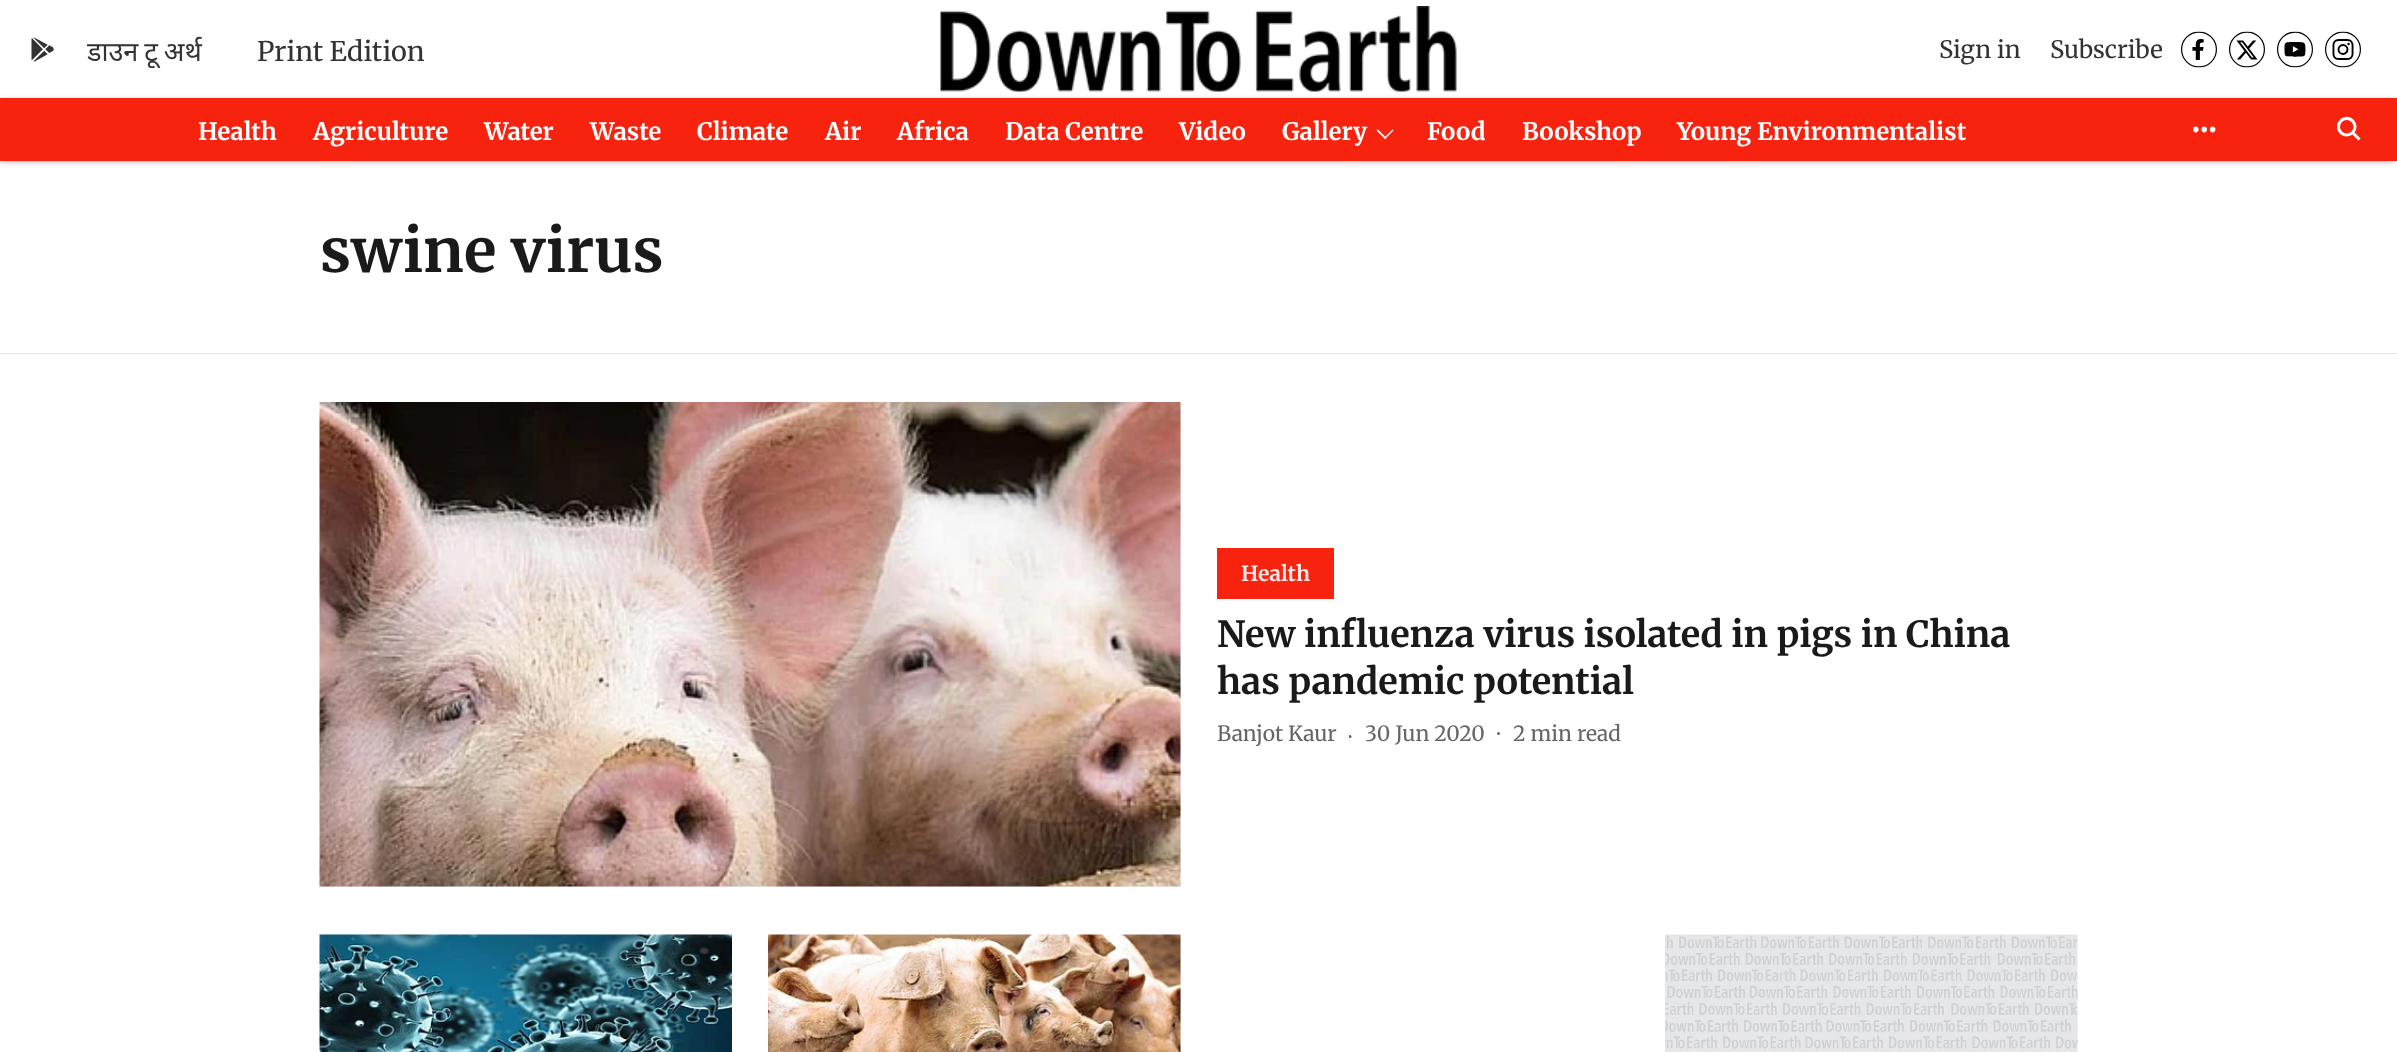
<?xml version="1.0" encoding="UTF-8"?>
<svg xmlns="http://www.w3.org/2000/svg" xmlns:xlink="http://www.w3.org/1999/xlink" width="2397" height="1052">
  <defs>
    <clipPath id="clip1"><rect x="1349" y="735" width="5" height="5" /></clipPath>
    <clipPath id="clip2"><rect x="87" y="32" width="830" height="36" /></clipPath>
  </defs>
  <rect width="100%" height="100%" fill="#ffffff" />
  <image x="31" y="37" width="23" height="25" xlink:href="image1.png" />
  <image x="940" y="6" width="517" height="86" xlink:href="image2.png" />
  <image x="2181" y="31" width="36" height="37" xlink:href="image3.png" />
  <image x="2229" y="31" width="36" height="37" xlink:href="image4.png" />
  <image x="2277" y="31" width="36" height="37" xlink:href="image5.png" />
  <image x="2325" y="31" width="36" height="37" xlink:href="image6.png" />
  <rect y="101" width="2394" height="60" fill="#000000" fill-opacity="0.39" filter="blur(3px)" />
  <rect y="98" width="2397" height="63" fill="#f7230f" />
  <path d="M 1392.5 129.5 l 1 1 l -8.5 8.5 l -1 -1 z" fill="#ffffff" />
  <path d="M 1378 129.5 l 8.5 8.5 l -1.5 1 l -8.5 -8.5 z" fill="#ffffff" />
  <image x="2193" y="126" width="23" height="7" xlink:href="image7.png" />
  <image x="2337" y="116" width="24" height="25" xlink:href="image8.png" />
  <rect y="353" width="2397" height="1" fill="#e6e6e6" />
  <rect x="320" y="402" width="861" height="485" fill="#f0f0f0" />
  <image x="319" y="402" width="862" height="485" xlink:href="image9.png" />
  <rect x="1217" y="548" width="117" height="51" fill="#f7230f" />
  <g clip-path="url(#clip1)">
    <circle cx="1350" cy="736.5" r="1.5" fill="#666666" />
  </g>
  <circle cx="1498.5" cy="733.5" r="1.5" fill="#666666" />
  <image x="319" y="934" width="413" height="118" xlink:href="image10.png" />
  <rect x="1180" y="935" width="1" height="117" fill="#f0f0f0" />
  <image x="768" y="934" width="413" height="118" xlink:href="image11.png" />
  <image x="1665" y="934" width="413" height="118" xlink:href="image12.png" />
  <g clip-path="url(#clip2)">
    <text x="87" y="61" word-spacing="-1" style="font-family: Noto Sans; font-size: 27px; fill: #333333">डाउन टू अर्थ</text>
  </g>
  <text x="257" y="61" style="font-family: Merriweather; font-size: 27px; font-weight: 300; fill: #333333">Print Edition</text>
  <text x="1939" y="58" style="font-family: Merriweather; font-size: 24px; font-weight: 300; fill: #333333">Sign in</text>
  <text x="2050" y="58" style="font-family: Merriweather; font-size: 24px; font-weight: 300; fill: #333333">Subscribe</text>
  <text x="198" y="140" style="font-family: 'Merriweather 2'; font-size: 24px; font-weight: 300; fill: #ffffff">Health</text>
  <text x="313" y="140" style="font-family: 'Merriweather 2'; font-size: 24px; font-weight: 300; fill: #ffffff">Agriculture</text>
  <text x="484" y="140" style="font-family: 'Merriweather 2'; font-size: 24px; font-weight: 300; fill: #ffffff">Water</text>
  <text x="590" y="140" style="font-family: 'Merriweather 2'; font-size: 24px; font-weight: 300; fill: #ffffff">Waste</text>
  <text x="697" y="140" style="font-family: 'Merriweather 2'; font-size: 24px; font-weight: 300; fill: #ffffff">Climate</text>
  <text x="825" y="140" style="font-family: 'Merriweather 2'; font-size: 24px; font-weight: 300; fill: #ffffff">Air</text>
  <text x="897" y="140" style="font-family: 'Merriweather 2'; font-size: 24px; font-weight: 300; fill: #ffffff">Africa</text>
  <text x="1005" y="140" style="font-family: 'Merriweather 2'; font-size: 24px; font-weight: 300; fill: #ffffff">Data Centre</text>
  <text x="1179" y="140" style="font-family: 'Merriweather 2'; font-size: 24px; font-weight: 300; fill: #ffffff">Video</text>
  <text x="1282" y="140" style="font-family: 'Merriweather 2'; font-size: 24px; font-weight: 300; fill: #ffffff">Gallery</text>
  <text x="1427" y="140" style="font-family: 'Merriweather 2'; font-size: 24px; font-weight: 300; fill: #ffffff">Food</text>
  <text x="1522" y="140" style="font-family: 'Merriweather 2'; font-size: 24px; font-weight: 300; fill: #ffffff">Bookshop</text>
  <text x="1677" y="140" style="font-family: 'Merriweather 2'; font-size: 24px; font-weight: 300; fill: #ffffff">Young Environmentalist</text>
  <text x="320" y="272" style="font-family: 'Merriweather 2'; font-size: 60px; font-weight: 300; fill: #1a1a1a">swine virus</text>
  <text x="1241" y="581" style="font-family: 'Merriweather 2'; font-size: 21px; font-weight: 300; fill: #fee9e7">Health</text>
  <text x="1217" y="647" style="font-family: 'Merriweather 2'; font-size: 36px; font-weight: 300; fill: #1a1a1a">New influenza virus isolated in pigs in China</text>
  <text x="1217" y="694" style="font-family: 'Merriweather 2'; font-size: 36px; font-weight: 300; fill: #1a1a1a">has pandemic potential</text>
  <text x="1217" y="741" style="font-family: Merriweather; font-size: 21px; font-weight: 300; fill: #666666">Banjot Kaur</text>
  <text x="1365" y="741" style="font-family: Merriweather; font-size: 21px; font-weight: 300; fill: #666666">30 Jun 2020</text>
  <text x="1513" y="741" style="font-family: Merriweather; font-size: 21px; font-weight: 300; fill: #666666">2 min read</text>
</svg>
